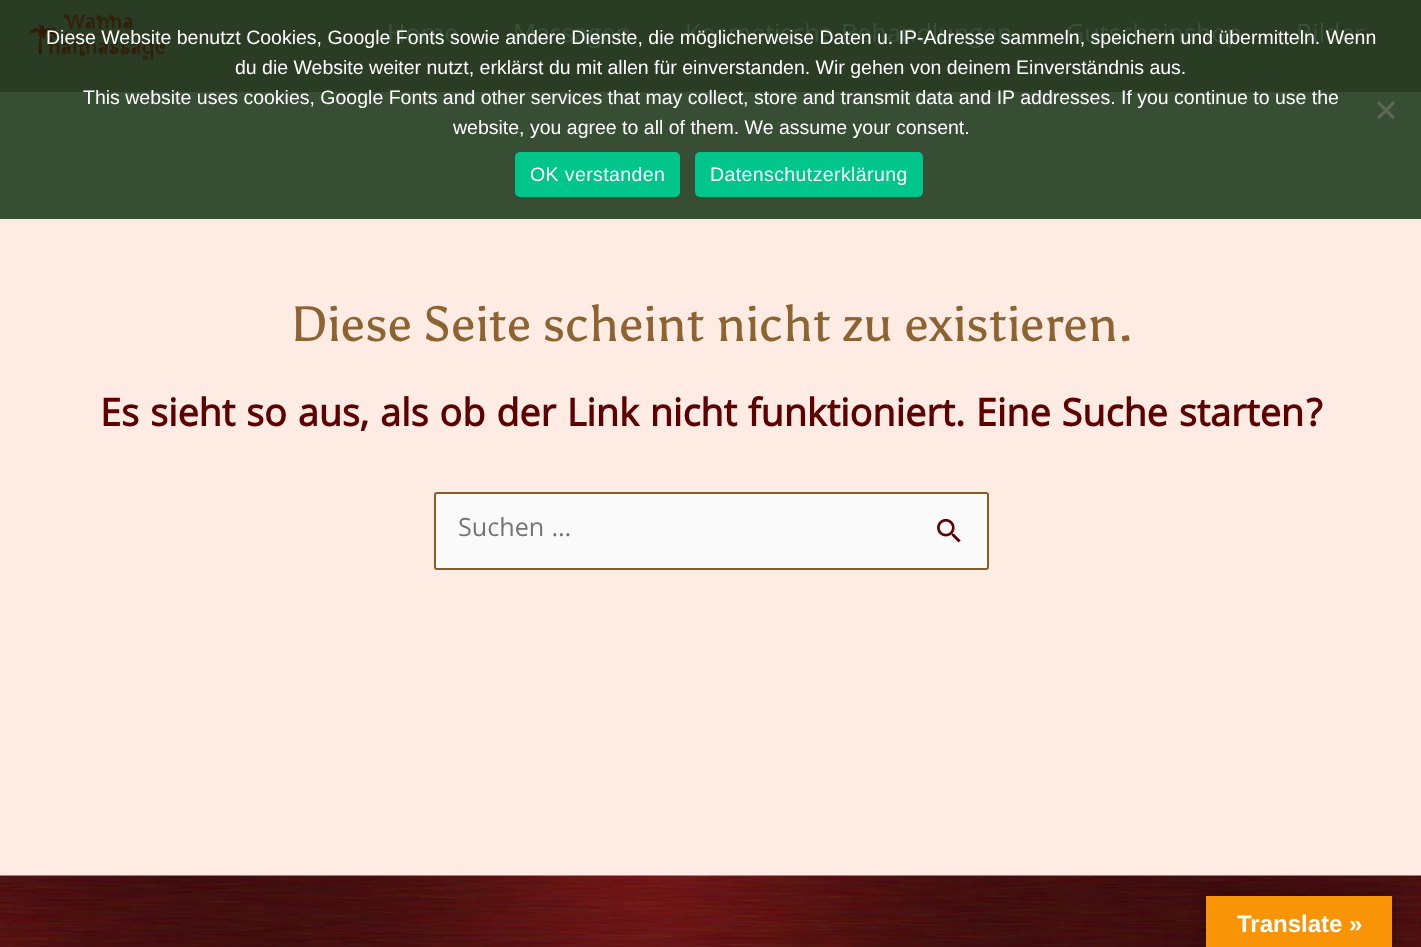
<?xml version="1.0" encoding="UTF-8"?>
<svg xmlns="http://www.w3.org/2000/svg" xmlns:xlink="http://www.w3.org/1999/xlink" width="1421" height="947">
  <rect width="100%" height="100%" fill="#feece4" />
  <rect y="92" width="1421" height="127" fill="#384e34" />
  <rect width="1421" height="92" fill="#2a3d24" />
  <image x="30" y="14" width="135" height="46" xlink:href="image1.png" />
  <rect x="435" y="493" width="553" height="76" rx="2" fill="#fafafa" stroke="#855e26" stroke-width="2" />
  <image x="937" y="518" width="24" height="25" xlink:href="image2.png" />
  <image x="0" y="875" width="1421" height="72" xlink:href="image3.png" />
  <path d="M 1393 101 l 2 2.5 l -16 16 l -2 -2.5 z" fill="#5c675a" />
  <path d="M 1377 103.5 l 2 -2.5 l 16 16 l -2 2.5 z" fill="#5c675a" />
  <rect x="515" y="152" width="165" height="45" rx="5" fill="#00c68b" />
  <rect x="695" y="152" width="228" height="45" rx="5" fill="#00c68b" />
  <rect x="1206" y="896" width="186" height="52" fill="#000000" fill-opacity="0.3" filter="blur(7px)" />
  <rect x="1206" y="896" width="186" height="51" fill="#f89406" />
  <text x="387" y="42" style="font-family: Khula; font-size: 27px; fill: #38523a">Home</text>
  <text x="513" y="42" style="font-family: Khula; font-size: 27px; fill: #38523a">Massagen</text>
  <text x="685" y="42" style="font-family: Khula; font-size: 27px; fill: #38523a">Kosmetische Behandlungen</text>
  <text x="1066" y="42" style="font-family: Khula; font-size: 27px; fill: #38523a">Gutscheinshop</text>
  <text x="1296" y="42" style="font-family: Khula; font-size: 27px; fill: #38523a">Bilder</text>
  <text x="290" y="341" style="font-family: Asul; font-size: 49.5px; fill: #8d6431">Diese Seite scheint nicht zu existieren.</text>
  <text x="100" y="426" style="font-family: Khula; font-size: 40.5px; font-weight: bold; fill: #5e0000">Es sieht so aus, als ob der Link nicht funktioniert. Eine Suche starten?</text>
  <text x="458" y="536" style="font-family: Khula; font-size: 27px; fill: #757575">Suchen …</text>
  <text x="46" y="44" style="font-family: Liberation Sans; font-size: 19.5px; fill: #ffffff">Diese Website benutzt Cookies, Google Fonts sowie andere Dienste, die möglicherweise Daten u. IP-Adresse sammeln, speichern und übermitteln. Wenn</text>
  <text x="235" y="74" style="font-family: Liberation Sans; font-size: 19.5px; fill: #ffffff">du die Website weiter nutzt, erklärst du mit allen für einverstanden. Wir gehen von deinem Einverständnis aus.</text>
  <text x="83" y="104" style="font-family: Liberation Sans; font-size: 19.5px; fill: #ffffff">This website uses cookies, Google Fonts and other services that may collect, store and transmit data and IP addresses. If you continue to use the</text>
  <text x="453" y="134" style="font-family: Liberation Sans; font-size: 19.5px; fill: #ffffff">website, you agree to all of them. We assume your consent.</text>
  <text x="530" y="181" style="font-family: Liberation Sans; font-size: 19.5px; letter-spacing: 0.4px; fill: #ffffff">OK verstanden</text>
  <text x="710" y="181" style="font-family: Liberation Sans; font-size: 19.5px; letter-spacing: 0.4px; fill: #ffffff">Datenschutzerklärung</text>
  <text x="1237" y="932" style="font-family: Liberation Sans; font-size: 24px; font-weight: bold; fill: #ffffff">Translate »</text>
</svg>
